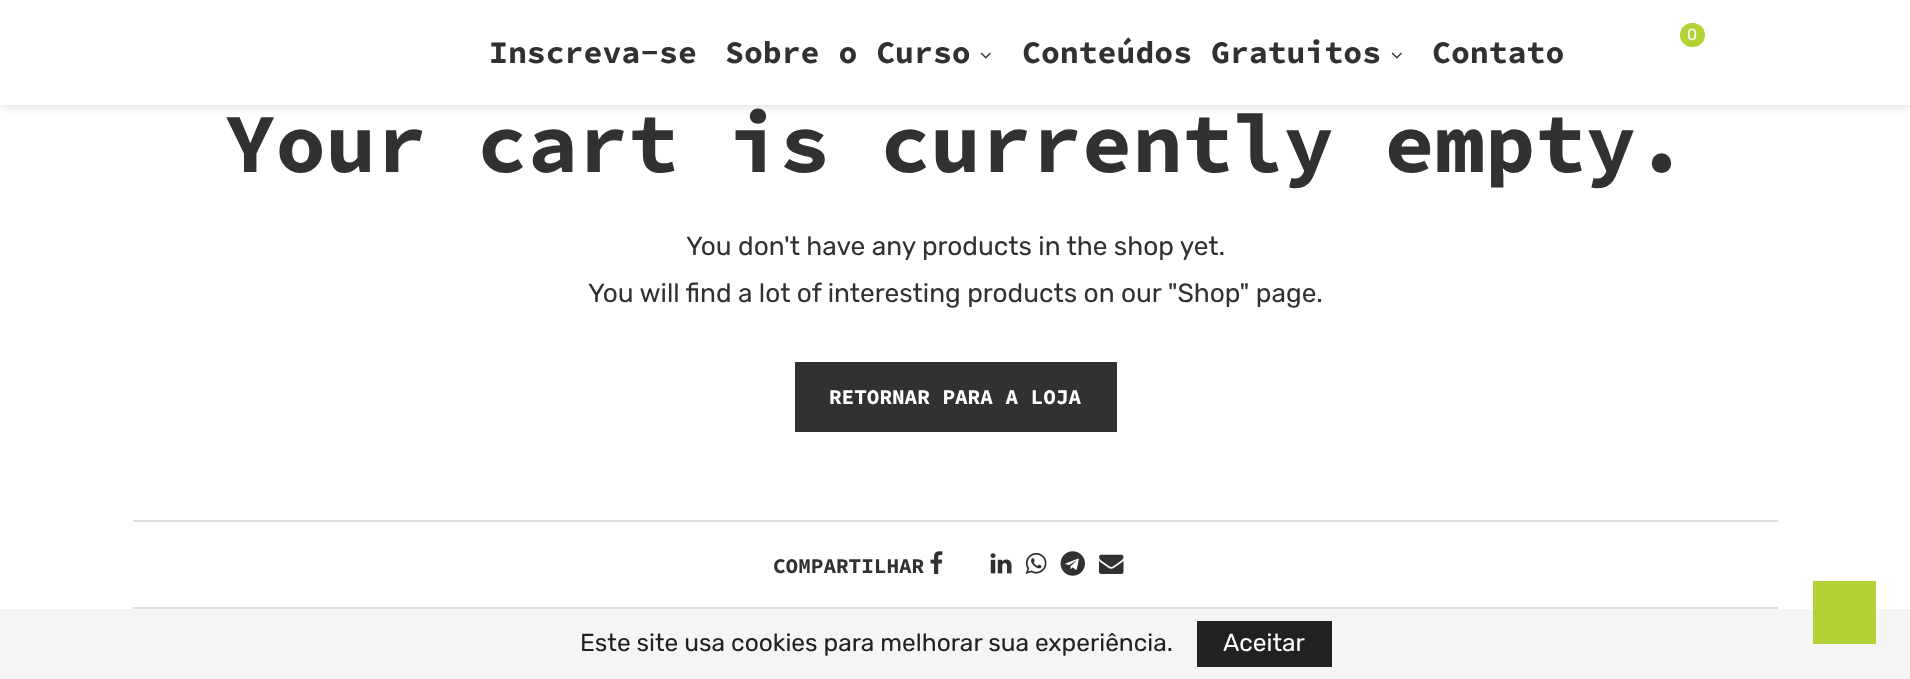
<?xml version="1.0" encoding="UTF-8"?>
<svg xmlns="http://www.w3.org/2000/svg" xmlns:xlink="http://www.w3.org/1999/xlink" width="1910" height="679">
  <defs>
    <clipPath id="clip1"><rect x="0" y="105" width="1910" height="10" /></clipPath>
  </defs>
  <rect width="100%" height="100%" fill="#ffffff" />
  <g clip-path="url(#clip1)">
    <rect y="2" width="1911" height="105" fill="#bebebe" fill-opacity="0.46" filter="blur(4.5px)" />
  </g>
  <rect x="1680" y="23" width="25" height="24" rx="12" fill="#b3d236" />
  <image x="980" y="52" width="11" height="7" xlink:href="image1.png" />
  <image x="1391" y="52" width="11" height="7" xlink:href="image2.png" />
  <rect x="795" y="362" width="322" height="70" fill="#313131" />
  <rect x="133" y="520" width="1645" height="2" fill="#dedede" />
  <rect x="133" y="607" width="1645" height="2" fill="#dedede" />
  <image x="930" y="551" width="13" height="23" xlink:href="image3.png" />
  <image x="990" y="553" width="22" height="21" xlink:href="image4.png" />
  <image x="1025" y="552" width="22" height="22" xlink:href="image5.png" />
  <image x="1060" y="551" width="25" height="25" xlink:href="image6.png" />
  <image x="1099" y="554" width="25" height="20" xlink:href="image7.png" />
  <rect y="609" width="1910" height="70" fill="#f5f5f5" />
  <rect x="1197" y="621" width="135" height="46" fill="#212121" />
  <rect x="1813" y="581" width="63" height="63" fill="#b3d236" />
  <text x="1687" y="40" style="font-family: Rubik; font-size: 16px; fill: #ffffff">0</text>
  <text x="489" y="63" style="font-family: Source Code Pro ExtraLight; font-size: 31.5px; font-weight: bold; fill: #313131">Inscreva-se</text>
  <text x="725" y="63" style="font-family: Source Code Pro ExtraLight; font-size: 31.5px; font-weight: bold; fill: #313131">Sobre o Curso</text>
  <text x="1022" y="63" style="font-family: Source Code Pro ExtraLight; font-size: 31.5px; font-weight: bold; fill: #313131">Conteúdos Gratuitos</text>
  <text x="1432" y="63" style="font-family: Source Code Pro ExtraLight; font-size: 31.5px; font-weight: bold; fill: #313131">Contato</text>
  <text x="225" y="172" style="font-family: Source Code Pro ExtraLight; font-size: 84px; font-weight: bold; fill: #313131">Your cart is currently empty.</text>
  <text x="686" y="255" style="font-family: Rubik; font-size: 26.25px; fill: #313131">You don't have any products in the shop yet.</text>
  <text x="588" y="302" style="font-family: Rubik; font-size: 26.25px; fill: #313131">You will find a lot of interesting products on our "Shop" page.</text>
  <text x="829" y="404" style="font-family: Source Code Pro ExtraLight; font-size: 21px; font-weight: bold; fill: #ffffff">RETORNAR PARA A LOJA</text>
  <text x="773" y="573" style="font-family: Source Code Pro ExtraLight; font-size: 21px; font-weight: bold; fill: #313131">COMPARTILHAR</text>
  <text x="580" y="651" style="font-family: Rubik; font-size: 24.5px; fill: #212121">Este site usa cookies para melhorar sua experiência.</text>
  <text x="1223" y="651" style="font-family: Rubik; font-size: 24.5px; fill: #ffffff">Aceitar</text>
</svg>
